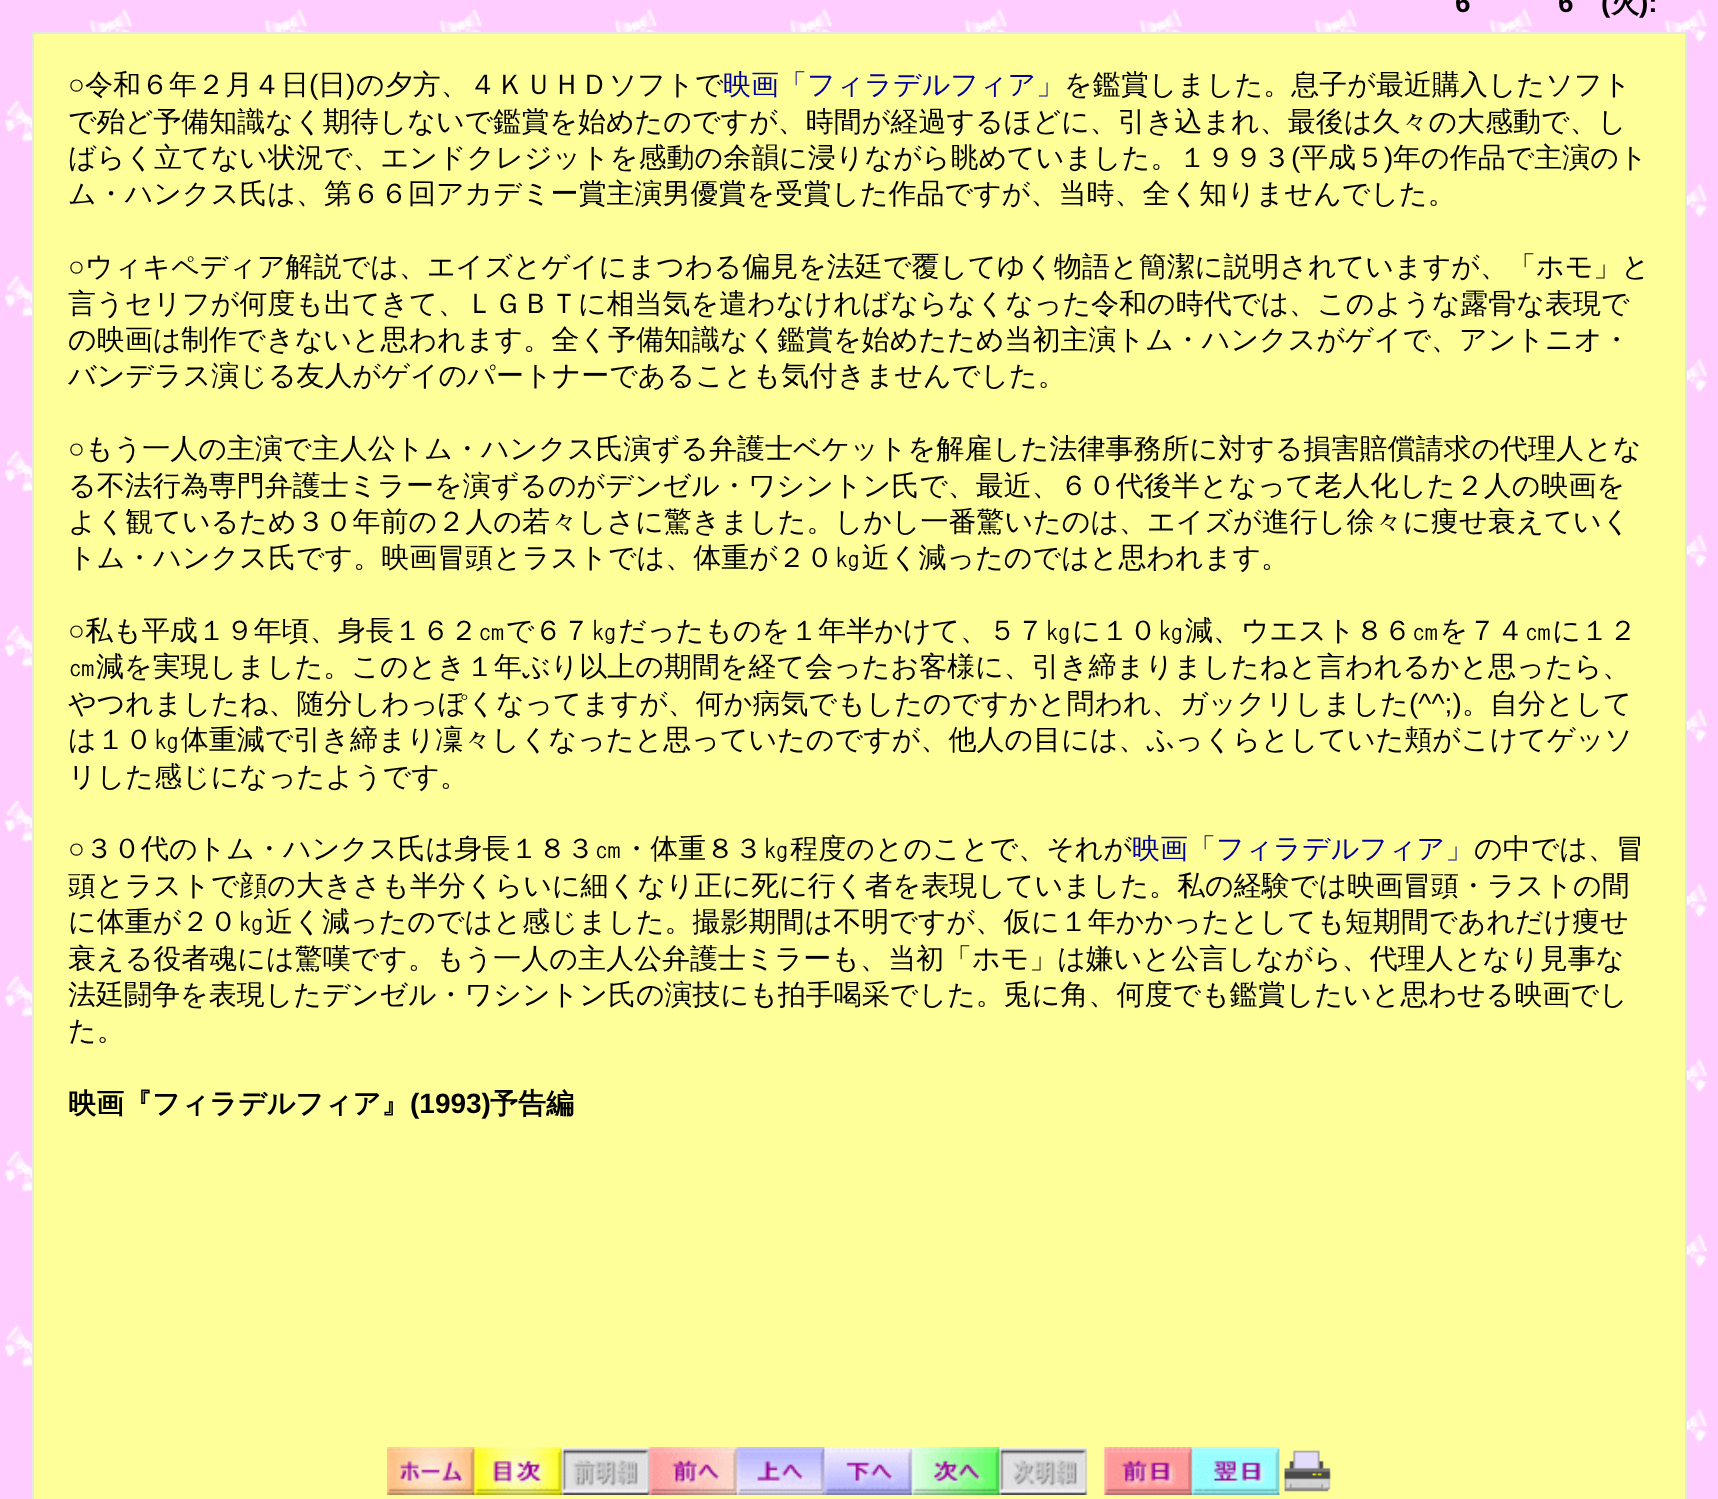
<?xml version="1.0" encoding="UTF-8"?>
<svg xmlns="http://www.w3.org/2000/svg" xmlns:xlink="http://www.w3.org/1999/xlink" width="1718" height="1499">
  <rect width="100%" height="100%" fill="#ffffff" />
  <image x="0" y="0" width="1718" height="1499" xlink:href="image1.png" />
  <rect x="33" y="33" width="1653" height="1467" fill="#ffff99" stroke="#e6e6e6" stroke-width="2" />
  <image x="387" y="1447" width="944" height="48" xlink:href="image2.png" />
  <text x="1455" y="12" style="font-family: Liberation Sans; font-size: 28px; font-weight: bold; fill: #000000">6</text>
  <text x="1558" y="12" style="font-family: Liberation Sans; font-size: 28px; font-weight: bold; fill: #000000">6</text>
  <text x="1601" y="12" style="font-family: Liberation Sans; font-size: 28px; font-weight: bold; fill: #000000">(</text>
  <text x="1611" y="12" style="font-family: WenQuanYi Zen Hei; font-size: 28px; font-weight: bold; fill: #000000">火</text>
  <text x="1639" y="12" style="font-family: Liberation Sans; font-size: 28px; font-weight: bold; fill: #000000">):</text>
  <text x="68" y="94" style="font-family: Liberation Sans; font-size: 28px; fill: #000000">○</text>
  <text x="85" y="94" style="font-family: WenQuanYi Zen Hei; font-size: 28px; font-weight: 500; fill: #000000">令和６年２月４日</text>
  <text x="309" y="94" style="font-family: Liberation Sans; font-size: 28px; fill: #000000">(</text>
  <text x="318" y="94" style="font-family: WenQuanYi Zen Hei; font-size: 28px; font-weight: 500; fill: #000000">日</text>
  <text x="346" y="94" style="font-family: Liberation Sans; font-size: 28px; fill: #000000">)</text>
  <text x="356" y="94" style="font-family: WenQuanYi Zen Hei; font-size: 28px; font-weight: 500; fill: #000000">の夕方、４ＫＵＨＤソフトで</text>
  <text x="723" y="94" style="font-family: WenQuanYi Zen Hei; font-size: 28px; font-weight: 500; fill: #000099">映画「フィラデルフィア」</text>
  <text x="1064" y="94" style="font-family: WenQuanYi Zen Hei; font-size: 28px; font-weight: 500; fill: #000000">を鑑賞しました。息子が最近購入したソフト</text>
  <text x="68" y="131" style="font-family: WenQuanYi Zen Hei; font-size: 28px; font-weight: 500; fill: #000000">で殆ど予備知識なく期待しないで鑑賞を始めたのですが、時間が経過するほどに、引き込まれ、最後は久々の大感動で、し</text>
  <text x="68" y="167" style="font-family: WenQuanYi Zen Hei; font-size: 28px; font-weight: 500; fill: #000000">ばらく立てない状況で、エンドクレジットを感動の余韻に浸りながら眺めていました。１９９３</text>
  <text x="1291" y="167" style="font-family: Liberation Sans; font-size: 28px; fill: #000000">(</text>
  <text x="1300" y="167" style="font-family: WenQuanYi Zen Hei; font-size: 28px; font-weight: 500; fill: #000000">平成５</text>
  <text x="1384" y="167" style="font-family: Liberation Sans; font-size: 28px; fill: #000000">)</text>
  <text x="1393" y="167" style="font-family: WenQuanYi Zen Hei; font-size: 28px; font-weight: 500; fill: #000000">年の作品で主演のト</text>
  <text x="68" y="203" style="font-family: WenQuanYi Zen Hei; font-size: 28px; font-weight: 500; fill: #000000">ム・ハンクス氏は、第６６回アカデミー賞主演男優賞を受賞した作品ですが、当時、全く知りませんでした。</text>
  <text x="68" y="276" style="font-family: Liberation Sans; font-size: 28px; fill: #000000">○</text>
  <text x="85" y="276" style="font-family: WenQuanYi Zen Hei; font-size: 28px; font-weight: 500; fill: #000000">ウィキペディア解説では、エイズとゲイにまつわる偏見を法廷で覆してゆく物語と簡潔に説明されていますが、「ホモ」と</text>
  <text x="68" y="313" style="font-family: WenQuanYi Zen Hei; font-size: 28px; font-weight: 500; fill: #000000">言うセリフが何度も出てきて、ＬＧＢＴに相当気を遣わなければならなくなった令和の時代では、このような露骨な表現で</text>
  <text x="68" y="349" style="font-family: WenQuanYi Zen Hei; font-size: 28px; font-weight: 500; fill: #000000">の映画は制作できないと思われます。全く予備知識なく鑑賞を始めたため当初主演トム・ハンクスがゲイで、アントニオ・</text>
  <text x="68" y="385" style="font-family: WenQuanYi Zen Hei; font-size: 28px; font-weight: 500; fill: #000000">バンデラス演じる友人がゲイのパートナーであることも気付きませんでした。</text>
  <text x="68" y="458" style="font-family: Liberation Sans; font-size: 28px; fill: #000000">○</text>
  <text x="85" y="458" style="font-family: WenQuanYi Zen Hei; font-size: 28px; font-weight: 500; fill: #000000">もう一人の主演で主人公トム・ハンクス氏演ずる弁護士ベケットを解雇した法律事務所に対する損害賠償請求の代理人とな</text>
  <text x="68" y="495" style="font-family: WenQuanYi Zen Hei; font-size: 28px; font-weight: 500; fill: #000000">る不法行為専門弁護士ミラーを演ずるのがデンゼル・ワシントン氏で、最近、６０代後半となって老人化した２人の映画を</text>
  <text x="68" y="531" style="font-family: WenQuanYi Zen Hei; font-size: 28px; font-weight: 500; fill: #000000">よく観ているため３０年前の２人の若々しさに驚きました。しかし一番驚いたのは、エイズが進行し徐々に痩せ衰えていく</text>
  <text x="68" y="567" style="font-family: WenQuanYi Zen Hei; font-size: 28px; font-weight: 500; fill: #000000">トム・ハンクス氏です。映画冒頭とラストでは、体重が２０㎏近く減ったのではと思われます。</text>
  <text x="68" y="640" style="font-family: Liberation Sans; font-size: 28px; fill: #000000">○</text>
  <text x="85" y="640" style="font-family: WenQuanYi Zen Hei; font-size: 28px; font-weight: 500; fill: #000000">私も平成１９年頃、身長１６２㎝で６７㎏だったものを１年半かけて、５７㎏に１０㎏減、ウエスト８６㎝を７４㎝に１２</text>
  <text x="68" y="676" style="font-family: WenQuanYi Zen Hei; font-size: 28px; font-weight: 500; fill: #000000">㎝減を実現しました。このとき１年ぶり以上の期間を経て会ったお客様に、引き締まりましたねと言われるかと思ったら、</text>
  <text x="68" y="713" style="font-family: WenQuanYi Zen Hei; font-size: 28px; font-weight: 500; fill: #000000">やつれましたね、随分しわっぽくなってますが、何か病気でもしたのですかと問われ、ガックリしました</text>
  <text x="1409" y="713" style="font-family: Liberation Sans; font-size: 28px; fill: #000000">(^^;)</text>
  <text x="1462" y="713" style="font-family: WenQuanYi Zen Hei; font-size: 28px; font-weight: 500; fill: #000000">。自分として</text>
  <text x="68" y="749" style="font-family: WenQuanYi Zen Hei; font-size: 28px; font-weight: 500; fill: #000000">は１０㎏体重減で引き締まり凜々しくなったと思っていたのですが、他人の目には、ふっくらとしていた頬がこけてゲッソ</text>
  <text x="68" y="786" style="font-family: WenQuanYi Zen Hei; font-size: 28px; font-weight: 500; fill: #000000">リした感じになったようです。</text>
  <text x="68" y="858" style="font-family: Liberation Sans; font-size: 28px; fill: #000000">○</text>
  <text x="85" y="858" style="font-family: WenQuanYi Zen Hei; font-size: 28px; font-weight: 500; fill: #000000">３０代のトム・ハンクス氏は身長１８３㎝・体重８３㎏程度のとのことで、それが</text>
  <text x="1132" y="858" style="font-family: WenQuanYi Zen Hei; font-size: 28px; font-weight: 500; fill: #000099">映画「フィラデルフィア」</text>
  <text x="1474" y="858" style="font-family: WenQuanYi Zen Hei; font-size: 28px; font-weight: 500; fill: #000000">の中では、冒</text>
  <text x="68" y="895" style="font-family: WenQuanYi Zen Hei; font-size: 28px; font-weight: 500; fill: #000000">頭とラストで顔の大きさも半分くらいに細くなり正に死に行く者を表現していました。私の経験では映画冒頭・ラストの間</text>
  <text x="68" y="931" style="font-family: WenQuanYi Zen Hei; font-size: 28px; font-weight: 500; fill: #000000">に体重が２０㎏近く減ったのではと感じました。撮影期間は不明ですが、仮に１年かかったとしても短期間であれだけ痩せ</text>
  <text x="68" y="968" style="font-family: WenQuanYi Zen Hei; font-size: 28px; font-weight: 500; fill: #000000">衰える役者魂には驚嘆です。もう一人の主人公弁護士ミラーも、当初「ホモ」は嫌いと公言しながら、代理人となり見事な</text>
  <text x="68" y="1004" style="font-family: WenQuanYi Zen Hei; font-size: 28px; font-weight: 500; fill: #000000">法廷闘争を表現したデンゼル・ワシントン氏の演技にも拍手喝采でした。兎に角、何度でも鑑賞したいと思わせる映画でし</text>
  <text x="68" y="1040" style="font-family: WenQuanYi Zen Hei; font-size: 28px; font-weight: 500; fill: #000000">た。</text>
  <text x="68" y="1113" style="font-family: WenQuanYi Zen Hei; font-size: 28px; font-weight: bold; fill: #000000">映画『フィラデルフィア』</text>
  <text x="410" y="1113" style="font-family: Liberation Sans; font-size: 28px; font-weight: bold; fill: #000000">(1993)</text>
  <text x="490" y="1113" style="font-family: WenQuanYi Zen Hei; font-size: 28px; font-weight: bold; fill: #000000">予告編</text>
</svg>
